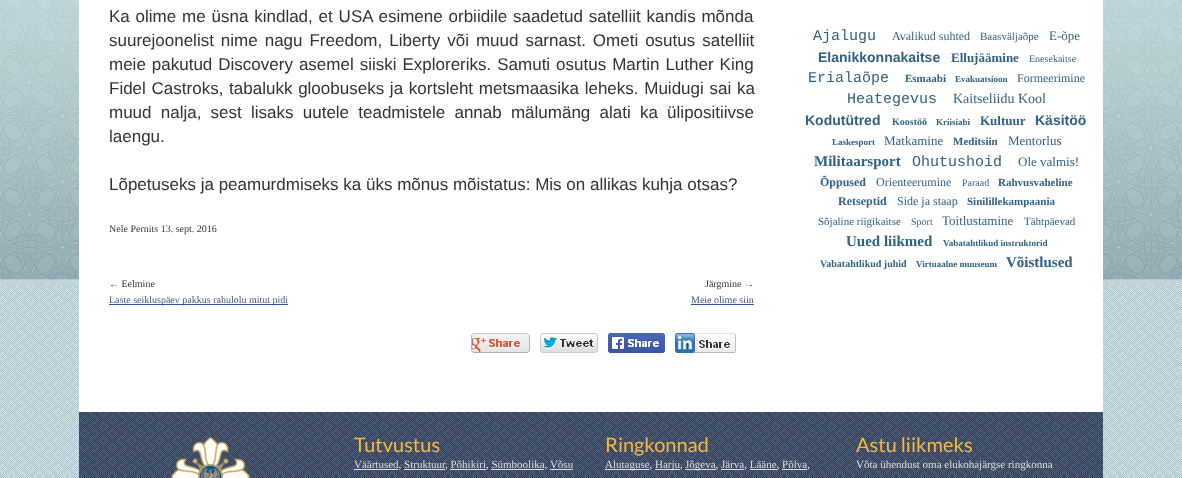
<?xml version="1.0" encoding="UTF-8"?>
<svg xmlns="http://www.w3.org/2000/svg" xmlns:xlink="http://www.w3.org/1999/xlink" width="1182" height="478">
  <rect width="100%" height="100%" fill="#ffffff" />
  <image x="0" y="283" width="1182" height="195" xlink:href="image1.png" />
  <image x="0" y="0" width="1182" height="283" xlink:href="image2.png" />
  <rect x="79" width="1024" height="412" fill="#ffffff" />
  <rect x="109" y="304" width="179" height="1" fill="#395595" />
  <rect x="691" y="304" width="63" height="1" fill="#395595" />
  <image x="471" y="333" width="59" height="20" xlink:href="image3.png" />
  <image x="540" y="333" width="58" height="20" xlink:href="image4.png" />
  <image x="608" y="333" width="57" height="20" xlink:href="image5.png" />
  <image x="675" y="333" width="61" height="20" xlink:href="image6.png" />
  <image x="79" y="412" width="1024" height="66" xlink:href="image7.png" />
  <image x="171" y="437" width="82" height="41" xlink:href="image8.png" />
  <rect x="354" y="469" width="44" height="1" fill="#dedede" />
  <rect x="404" y="469" width="41" height="1" fill="#dedede" />
  <rect x="450" y="469" width="36" height="1" fill="#dedede" />
  <rect x="491" y="469" width="53" height="1" fill="#dedede" />
  <rect x="550" y="469" width="23" height="1" fill="#dedede" />
  <rect x="605" y="469" width="44" height="1" fill="#dedede" />
  <rect x="655" y="469" width="25" height="1" fill="#dedede" />
  <rect x="685" y="469" width="31" height="1" fill="#dedede" />
  <rect x="721" y="469" width="23" height="1" fill="#dedede" />
  <rect x="750" y="469" width="27" height="1" fill="#dedede" />
  <rect x="782" y="469" width="25" height="1" fill="#dedede" />
  <text x="109" y="22" word-spacing="1.1" style="font-family: Liberation Sans; font-size: 17px; fill: #333333">Ka olime me üsna kindlad, et USA esimene orbiidile saadetud satelliit kandis mõnda</text>
  <text x="109" y="46" word-spacing="2.25" style="font-family: Liberation Sans; font-size: 17px; fill: #333333">suurejoonelist nime nagu Freedom, Liberty või muud sarnast. Ometi osutus satelliit</text>
  <text x="109" y="70" word-spacing="1.25" style="font-family: Liberation Sans; font-size: 17px; fill: #333333">meie pakutud Discovery asemel siiski Exploreriks. Samuti osutus Martin Luther King</text>
  <text x="109" y="94" word-spacing="1" style="font-family: Liberation Sans; font-size: 17px; fill: #333333">Fidel Castroks, tabalukk gloobuseks ja kortsleht metsmaasika leheks. Muidugi sai ka</text>
  <text x="109" y="118" word-spacing="4.5" style="font-family: Liberation Sans; font-size: 17px; fill: #333333">muud nalja, sest lisaks uutele teadmistele annab mälumäng alati ka ülipositiivse</text>
  <text x="109" y="142" style="font-family: Liberation Sans; font-size: 17px; fill: #333333">laengu.</text>
  <text x="109" y="190" style="font-family: Liberation Sans; font-size: 17px; fill: #333333">Lõpetuseks ja peamurdmiseks ka üks mõnus mõistatus: Mis on allikas kuhja otsas?</text>
  <text x="109" y="232" style="font-family: Liberation Serif; font-size: 10px; fill: #333333">Nele Pernits 13. sept. 2016</text>
  <text x="109" y="287" style="font-family: Liberation Serif; font-size: 10px; fill: #333333">← Eelmine</text>
  <text x="109" y="303" style="font-family: Liberation Serif; font-size: 10px; fill: #395595">Laste seikluspäev pakkus rahulolu mitut pidi</text>
  <text x="705" y="287" style="font-family: Liberation Serif; font-size: 10px; fill: #333333">Järgmine →</text>
  <text x="691" y="303" style="font-family: Liberation Serif; font-size: 10px; fill: #395595">Meie olime siin</text>
  <text x="813" y="40" style="font-family: Liberation Mono; font-size: 15px; fill: #316285">Ajalugu</text>
  <text x="892" y="40" style="font-family: Liberation Serif; font-size: 12px; fill: #316285">Avalikud suhted</text>
  <text x="980" y="40" style="font-family: Liberation Serif; font-size: 11px; fill: #316285">Baasväljaõpe</text>
  <text x="1049" y="40" style="font-family: Liberation Serif; font-size: 13px; fill: #316285">E-õpe</text>
  <text x="818" y="62" style="font-family: Liberation Sans; font-size: 14px; font-weight: bold; fill: #316285">Elanikkonnakaitse</text>
  <text x="951" y="62" style="font-family: Liberation Serif; font-size: 13px; font-weight: bold; fill: #316285">Ellujäämine</text>
  <text x="1029" y="62" style="font-family: Liberation Serif; font-size: 10px; fill: #316285">Enesekaitse</text>
  <text x="808" y="82" style="font-family: Liberation Mono; font-size: 15px; fill: #316285">Erialaõpe</text>
  <text x="905" y="82" style="font-family: Liberation Serif; font-size: 11px; font-weight: bold; fill: #316285">Esmaabi</text>
  <text x="955" y="82" style="font-family: Liberation Serif; font-size: 9px; font-weight: bold; fill: #316285">Evakuatsioon</text>
  <text x="1017" y="82" style="font-family: Liberation Serif; font-size: 12px; fill: #316285">Formeerimine</text>
  <text x="847" y="103" style="font-family: Liberation Mono; font-size: 15px; fill: #316285">Heategevus</text>
  <text x="953" y="103" style="font-family: Liberation Serif; font-size: 14px; fill: #316285">Kaitseliidu Kool</text>
  <text x="805" y="125" style="font-family: Liberation Sans; font-size: 14px; font-weight: bold; fill: #316285">Kodutütred</text>
  <text x="892" y="125" style="font-family: Liberation Serif; font-size: 10px; font-weight: bold; fill: #316285">Koostöö</text>
  <text x="936" y="125" style="font-family: Liberation Serif; font-size: 9px; font-weight: bold; fill: #316285">Kriisiabi</text>
  <text x="980" y="125" style="font-family: Liberation Serif; font-size: 13px; font-weight: bold; fill: #316285">Kultuur</text>
  <text x="1035" y="125" style="font-family: Liberation Sans; font-size: 14px; font-weight: bold; fill: #316285">Käsitöö</text>
  <text x="832" y="145" style="font-family: Liberation Serif; font-size: 9px; font-weight: bold; fill: #316285">Laskesport</text>
  <text x="884" y="145" style="font-family: Liberation Serif; font-size: 13px; fill: #316285">Matkamine</text>
  <text x="953" y="145" style="font-family: Liberation Serif; font-size: 11px; font-weight: bold; fill: #316285">Meditsiin</text>
  <text x="1008" y="145" style="font-family: Liberation Serif; font-size: 13px; fill: #316285">Mentorlus</text>
  <text x="814" y="166" style="font-family: Liberation Serif; font-size: 15px; font-weight: bold; fill: #316285">Militaarsport</text>
  <text x="912" y="166" style="font-family: Liberation Mono; font-size: 15px; fill: #316285">Ohutushoid</text>
  <text x="1018" y="166" style="font-family: Liberation Serif; font-size: 13px; fill: #316285">Ole valmis!</text>
  <text x="820" y="186" style="font-family: Liberation Serif; font-size: 12px; font-weight: bold; fill: #316285">Õppused</text>
  <text x="876" y="186" style="font-family: Liberation Serif; font-size: 12px; fill: #316285">Orienteerumine</text>
  <text x="962" y="186" style="font-family: Liberation Serif; font-size: 10px; fill: #316285">Paraad</text>
  <text x="998" y="186" style="font-family: Liberation Serif; font-size: 11px; font-weight: bold; fill: #316285">Rahvusvaheline</text>
  <text x="838" y="205" style="font-family: Liberation Serif; font-size: 12px; font-weight: bold; fill: #316285">Retseptid</text>
  <text x="897" y="205" style="font-family: Liberation Serif; font-size: 12px; fill: #316285">Side ja staap</text>
  <text x="967" y="205" style="font-family: Liberation Serif; font-size: 11px; font-weight: bold; fill: #316285">Sinilillekampaania</text>
  <text x="818" y="225" style="font-family: Liberation Serif; font-size: 11px; fill: #316285">Sõjaline riigikaitse</text>
  <text x="911" y="225" style="font-family: Liberation Serif; font-size: 10px; fill: #316285">Sport</text>
  <text x="942" y="225" style="font-family: Liberation Serif; font-size: 13px; fill: #316285">Toitlustamine</text>
  <text x="1024" y="225" style="font-family: Liberation Serif; font-size: 11px; fill: #316285">Tähtpäevad</text>
  <text x="846" y="246" style="font-family: Liberation Serif; font-size: 15px; font-weight: bold; fill: #316285">Uued liikmed</text>
  <text x="943" y="246" style="font-family: Liberation Serif; font-size: 9px; font-weight: bold; fill: #316285">Vabatahtlikud instruktorid</text>
  <text x="820" y="267" style="font-family: Liberation Serif; font-size: 10px; font-weight: bold; fill: #316285">Vabatahtlikud juhid</text>
  <text x="916" y="267" style="font-family: Liberation Serif; font-size: 9px; font-weight: bold; fill: #316285">Virtuaalne muuseum</text>
  <text x="1006" y="267" style="font-family: Liberation Serif; font-size: 15px; font-weight: bold; fill: #316285">Võistlused</text>
  <text x="354" y="452" style="font-family: Lato; font-size: 20px; fill: #f9b83d">Tutvustus</text>
  <text x="354" y="468" style="font-family: Liberation Serif; font-size: 11px; fill: #dedede">Väärtused, Struktuur</text>
  <text x="445" y="468" style="font-family: Liberation Serif; font-size: 11px; fill: #dedede">, Põhikiri, Sümboolika, Võsu</text>
  <text x="605" y="452" style="font-family: Lato; font-size: 20px; fill: #f9b83d">Ringkonnad</text>
  <text x="605" y="468" style="font-family: Liberation Serif; font-size: 11px; fill: #dedede">Alutaguse,</text>
  <text x="655" y="468" style="font-family: Liberation Serif; font-size: 11px; fill: #dedede">Harju,</text>
  <text x="685" y="468" style="font-family: Liberation Serif; font-size: 11px; fill: #dedede">Jõgeva, Järva, Lääne, Põlva,</text>
  <text x="856" y="452" style="font-family: Lato; font-size: 20px; fill: #f9b83d">Astu liikmeks</text>
  <text x="856" y="468" style="font-family: Liberation Serif; font-size: 11px; fill: #dedede">Võta ühendust oma elukohajärgse ringkonna</text>
</svg>
